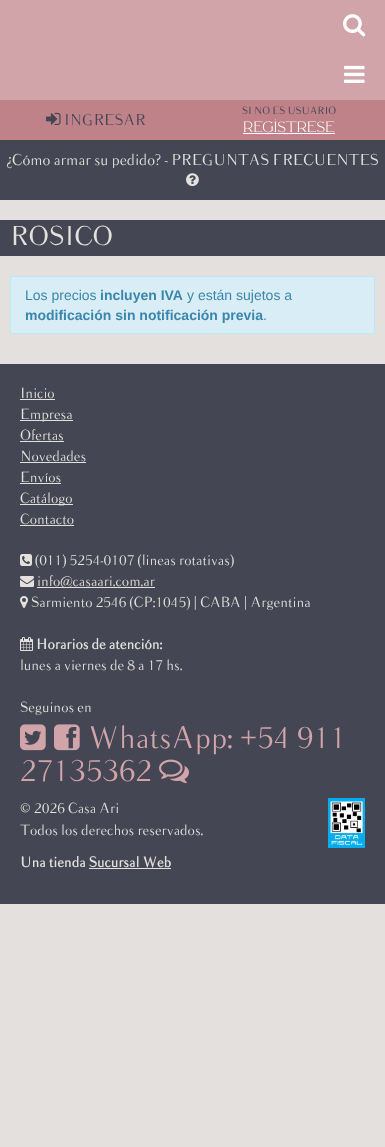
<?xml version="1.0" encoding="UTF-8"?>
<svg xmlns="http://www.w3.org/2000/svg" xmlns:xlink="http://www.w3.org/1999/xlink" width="385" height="1147">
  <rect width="100%" height="100%" fill="#e4e0dd" />
  <rect width="385" height="100" fill="#d1a4a9" />
  <image x="343" y="14" width="23" height="23" xlink:href="image1.png" />
  <image x="344" y="65" width="21" height="18" xlink:href="image2.png" />
  <rect y="100" width="385" height="40" fill="#c08289" />
  <image x="243" y="119" width="92" height="14" xlink:href="image3.png" />
  <rect x="243" y="133" width="92" height="1" fill="#ffffff" />
  <image x="46" y="112" width="15" height="13" xlink:href="image4.png" />
  <rect y="140" width="385" height="60" fill="#444653" />
  <image x="186" y="173" width="13" height="14" xlink:href="image5.png" />
  <rect y="220" width="385" height="36" fill="#444653" />
  <rect x="10.5" y="276.5" width="364" height="57" fill="#d9edf7" stroke="#bce8f1" />
  <rect y="364" width="385" height="540" fill="#444653" />
  <rect x="20" y="399" width="35" height="1" fill="#e4e0dd" />
  <rect x="20" y="420" width="53" height="1" fill="#e4e0dd" />
  <rect x="20" y="441" width="44" height="1" fill="#e4e0dd" />
  <rect x="20" y="462" width="66" height="1" fill="#e4e0dd" />
  <rect x="20" y="483" width="41" height="1" fill="#e4e0dd" />
  <rect x="20" y="504" width="53" height="1" fill="#e4e0dd" />
  <rect x="20" y="525" width="54" height="1" fill="#e4e0dd" />
  <image x="20" y="554" width="12" height="12" xlink:href="image6.png" />
  <image x="20" y="576" width="14" height="11" xlink:href="image7.png" />
  <rect x="37" y="587" width="118" height="1" fill="#e4e0dd" />
  <image x="20" y="596" width="8" height="12" xlink:href="image8.png" />
  <image x="20" y="637" width="13" height="14" xlink:href="image9.png" />
  <image x="20" y="724" width="26" height="27" xlink:href="image10.png" />
  <image x="54" y="724" width="26" height="27" xlink:href="image11.png" />
  <image x="159" y="759" width="30" height="25" xlink:href="image12.png" />
  <image x="328" y="798" width="37" height="50" xlink:href="image13.png" />
  <rect x="89" y="868" width="82" height="1" fill="#e4e0dd" />
  <text x="242" y="114" style="font-family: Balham; font-size: 10px; fill: #444653">SI NO ES USUARIO</text>
  <text x="64" y="125" style="font-family: Balham; font-size: 15px; fill: #444653">INGRESAR</text>
  <text x="6" y="165" style="font-family: Balham; font-size: 15px; fill: #e4e0dd">¿Cómo armar su pedido? - PREGUNTAS FRECUENTES</text>
  <text x="10" y="245" style="font-family: Balham; font-size: 26px; fill: #e4e0dd">ROSICO</text>
  <text x="25" y="300" style="font-family: Liberation Sans; font-size: 14px; fill: #3a87ad">Los precios</text>
  <text x="100" y="300" style="font-family: Liberation Sans; font-size: 14px; font-weight: bold; fill: #3a87ad">incluyen IVA</text>
  <text x="187" y="300" style="font-family: Liberation Sans; font-size: 14px; fill: #3a87ad">y están sujetos a</text>
  <text x="25" y="320" style="font-family: Liberation Sans; font-size: 14px; font-weight: bold; fill: #3a87ad">modificación sin notificación previa</text>
  <text x="263" y="320" style="font-family: Liberation Sans; font-size: 14px; fill: #3a87ad">.</text>
  <text x="20" y="398" style="font-family: Balham; font-size: 14px; fill: #e4e0dd">Inicio</text>
  <text x="20" y="419" style="font-family: Balham; font-size: 14px; fill: #e4e0dd">Empresa</text>
  <text x="20" y="440" style="font-family: Balham; font-size: 14px; fill: #e4e0dd">Ofertas</text>
  <text x="20" y="461" style="font-family: Balham; font-size: 14px; fill: #e4e0dd">Novedades</text>
  <text x="20" y="482" style="font-family: Balham; font-size: 14px; fill: #e4e0dd">Envíos</text>
  <text x="20" y="503" style="font-family: Balham; font-size: 14px; fill: #e4e0dd">Catálogo</text>
  <text x="20" y="524" style="font-family: Balham; font-size: 14px; fill: #e4e0dd">Contacto</text>
  <text x="35" y="565" style="font-family: Balham; font-size: 14px; fill: #e4e0dd">(011) 5254-0107 (lineas rotativas)</text>
  <text x="37" y="586" style="font-family: Balham; font-size: 14px; fill: #e4e0dd">info@casaari.com.ar</text>
  <text x="31" y="607" style="font-family: Balham; font-size: 14px; fill: #e4e0dd">Sarmiento 2546 (CP:1045) | CABA | Argentina</text>
  <text x="36" y="649" style="font-family: Balham; font-size: 14px; font-weight: bold; fill: #e4e0dd">Horarios de atención:</text>
  <text x="20" y="670" style="font-family: Balham; font-size: 14px; fill: #e4e0dd">lunes a viernes de 8 a 17 hs.</text>
  <text x="20" y="712" style="font-family: Balham; font-size: 14px; fill: #e4e0dd">Seguinos en</text>
  <text x="88" y="748" style="font-family: Balham; font-size: 30px; fill: #d1a4a9">WhatsApp: +54 911</text>
  <text x="20" y="781" style="font-family: Balham; font-size: 30px; fill: #d1a4a9">27135362</text>
  <text x="20" y="813" style="font-family: Balham; font-size: 14px; fill: #e4e0dd">© 2026 Casa Ari</text>
  <text x="20" y="835" style="font-family: Balham; font-size: 14px; fill: #e4e0dd">Todos los derechos reservados.</text>
  <text x="20" y="867" style="font-family: Balham; font-size: 14px; font-weight: bold; fill: #e4e0dd">Una tienda Sucursal Web</text>
</svg>
